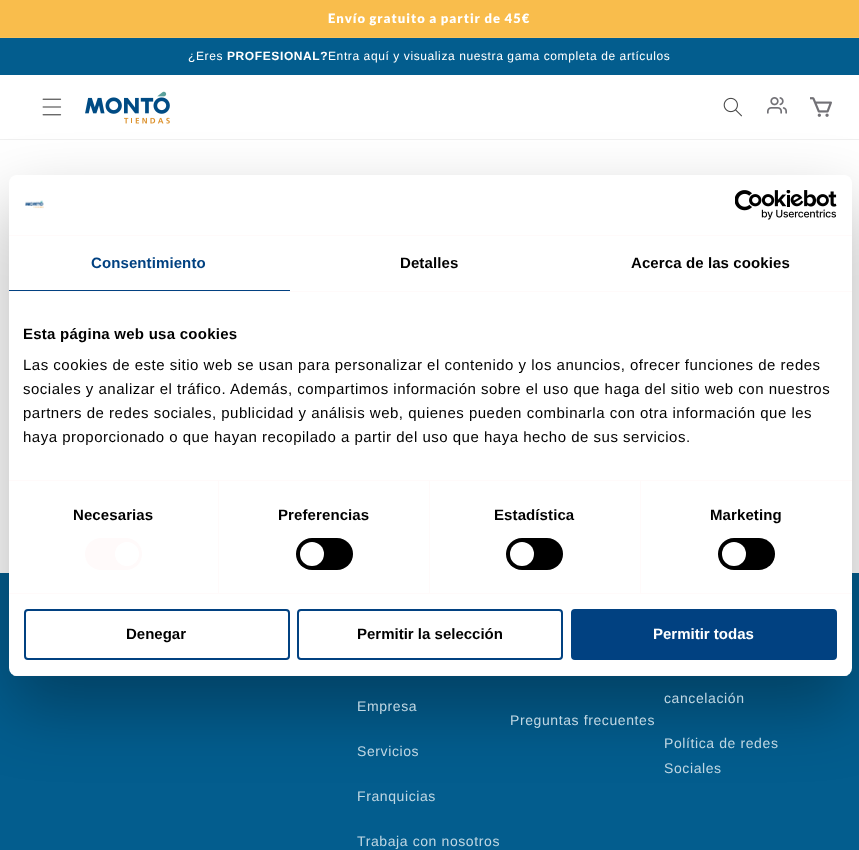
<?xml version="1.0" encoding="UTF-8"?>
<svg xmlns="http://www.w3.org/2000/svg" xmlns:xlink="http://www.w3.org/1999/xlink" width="859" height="850">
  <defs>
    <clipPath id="clip1"><rect x="9" y="175" width="843" height="501" rx="8" /></clipPath>
  </defs>
  <rect width="100%" height="100%" fill="#ffffff" />
  <rect width="859" height="37" fill="#f9bd4c" />
  <rect y="37" width="859" height="1" fill="#f9c25a" />
  <rect y="38" width="859" height="37" fill="#035d8e" />
  <rect y="139" width="859" height="1" fill="#f0f0f0" />
  <image x="42" y="98" width="20" height="18" xlink:href="image1.png" />
  <image x="85" y="91" width="85" height="33" xlink:href="image2.png" />
  <image x="723" y="97" width="19" height="20" xlink:href="image3.png" />
  <image x="767" y="97" width="20" height="17" xlink:href="image4.png" />
  <image x="810" y="97" width="22" height="20" xlink:href="image5.png" />
  <rect y="573" width="859" height="277" fill="#035d8e" />
  <rect x="9" y="207" width="843" height="501" rx="8" fill="#000000" fill-opacity="0.3" filter="blur(34px)" />
  <rect x="9" y="175" width="843" height="501" rx="8" fill="#ffffff" />
  <rect x="9" y="235" width="843" height="1" fill="#fffafa" />
  <image x="25" y="200" width="19" height="9" xlink:href="image6.png" />
  <image x="735" y="190" width="102" height="30" xlink:href="image7.png" />
  <rect x="9" y="291" width="843" height="1" fill="#fffafa" />
  <rect x="9" y="290" width="281" height="1" fill="#014181" />
  <rect x="9" y="480" width="843" height="1" fill="#fffafa" />
  <rect x="9" y="593" width="843" height="1" fill="#fffafa" />
  <rect x="218" y="481" width="1" height="112" fill="#fffafa" />
  <rect x="85" y="538" width="57" height="32" rx="16" fill="#fffafa" />
  <circle cx="127" cy="554" r="12" fill="#ffffff" />
  <rect x="429" y="481" width="1" height="112" fill="#fffafa" />
  <rect x="296" y="538" width="57" height="32" rx="16" fill="#000000" />
  <circle cx="312" cy="554" r="12" fill="#ffffff" />
  <rect x="640" y="481" width="1" height="112" fill="#fffafa" />
  <rect x="506" y="538" width="57" height="32" rx="16" fill="#000000" />
  <circle cx="522" cy="554" r="12" fill="#ffffff" />
  <rect x="718" y="538" width="57" height="32" rx="16" fill="#000000" />
  <circle cx="734" cy="554" r="12" fill="#ffffff" />
  <g clip-path="url(#clip1)">
    <rect x="9" y="675" width="843" height="1" fill="#fffafa" />
  </g>
  <rect x="25" y="610" width="264" height="49" rx="3" fill="none" stroke="#014181" stroke-width="2" />
  <rect x="298" y="610" width="264" height="49" rx="3" fill="none" stroke="#014181" stroke-width="2" />
  <rect x="572" y="610" width="264" height="49" rx="3" fill="#014181" stroke="#014181" stroke-width="2" />
  <text x="328" y="23" style="font-family: Lato; font-size: 13px; font-weight: 900; letter-spacing: 1px; fill: #ffffff">Envío gratuito a partir de 45€</text>
  <text x="188" y="60" style="font-family: Liberation Sans; font-size: 12px; letter-spacing: 0.6px; fill: #ffffff">¿Eres</text>
  <text x="227" y="60" style="font-family: Liberation Sans; font-size: 12px; font-weight: bold; letter-spacing: 0.6px; fill: #ffffff">PROFESIONAL?</text>
  <text x="328" y="60" style="font-family: Liberation Sans; font-size: 12px; letter-spacing: 0.6px; fill: #ffffff">Entra aquí y visualiza nuestra gama completa de artículos</text>
  <text x="91" y="268" style="font-family: Liberation Sans; font-size: 15px; font-weight: bold; letter-spacing: 0.1px; fill: #014181">Consentimiento</text>
  <text x="400" y="268" style="font-family: Liberation Sans; font-size: 15px; font-weight: bold; letter-spacing: 0.1px; fill: #000000">Detalles</text>
  <text x="631" y="268" style="font-family: Liberation Sans; font-size: 15px; font-weight: bold; letter-spacing: 0.1px; fill: #000000">Acerca de las cookies</text>
  <text x="23" y="339" style="font-family: Liberation Sans; font-size: 15px; font-weight: bold; letter-spacing: 0.25px; fill: #000000">Esta página web usa cookies</text>
  <text x="23" y="370" style="font-family: Liberation Sans; font-size: 15px; letter-spacing: 0.5px; fill: #000000">Las cookies de este sitio web se usan para personalizar el contenido y los anuncios, ofrecer funciones de redes</text>
  <text x="23" y="394" style="font-family: Liberation Sans; font-size: 15px; letter-spacing: 0.5px; fill: #000000">sociales y analizar el tráfico. Además, compartimos información sobre el uso que haga del sitio web con nuestros</text>
  <text x="23" y="418" style="font-family: Liberation Sans; font-size: 15px; letter-spacing: 0.5px; fill: #000000">partners de redes sociales, publicidad y análisis web, quienes pueden combinarla con otra información que les</text>
  <text x="23" y="442" style="font-family: Liberation Sans; font-size: 15px; letter-spacing: 0.5px; fill: #000000">haya proporcionado o que hayan recopilado a partir del uso que haya hecho de sus servicios.</text>
  <text x="73" y="520" style="font-family: Liberation Sans; font-size: 15px; font-weight: bold; letter-spacing: 0.1px; fill: #000000">Necesarias</text>
  <text x="278" y="520" style="font-family: Liberation Sans; font-size: 15px; font-weight: bold; letter-spacing: 0.1px; fill: #000000">Preferencias</text>
  <text x="494" y="520" style="font-family: Liberation Sans; font-size: 15px; font-weight: bold; letter-spacing: 0.1px; fill: #000000">Estadística</text>
  <text x="710" y="520" style="font-family: Liberation Sans; font-size: 15px; font-weight: bold; letter-spacing: 0.1px; fill: #000000">Marketing</text>
  <text x="126" y="639" style="font-family: Liberation Sans; font-size: 15px; font-weight: bold; fill: #000000">Denegar</text>
  <text x="357" y="639" style="font-family: Liberation Sans; font-size: 15px; font-weight: bold; fill: #000000">Permitir la selección</text>
  <text x="653" y="639" style="font-family: Liberation Sans; font-size: 15px; font-weight: bold; fill: #ffffff">Permitir todas</text>
  <text x="357" y="711" style="font-family: Liberation Sans; font-size: 14px; letter-spacing: 0.6px; fill: #c0d7e3">Empresa</text>
  <text x="357" y="756" style="font-family: Liberation Sans; font-size: 14px; letter-spacing: 0.6px; fill: #c0d7e3">Servicios</text>
  <text x="357" y="801" style="font-family: Liberation Sans; font-size: 14px; letter-spacing: 0.6px; fill: #c0d7e3">Franquicias</text>
  <text x="357" y="846" style="font-family: Liberation Sans; font-size: 14px; letter-spacing: 0.6px; fill: #c0d7e3">Trabaja con nosotros</text>
  <text x="510" y="725" style="font-family: Liberation Sans; font-size: 14px; letter-spacing: 0.6px; fill: #c0d7e3">Preguntas frecuentes</text>
  <text x="664" y="703" style="font-family: Liberation Sans; font-size: 14px; letter-spacing: 0.6px; fill: #c0d7e3">cancelación</text>
  <text x="664" y="748" style="font-family: Liberation Sans; font-size: 14px; letter-spacing: 0.6px; fill: #c0d7e3">Política de redes</text>
  <text x="664" y="773" style="font-family: Liberation Sans; font-size: 14px; letter-spacing: 0.6px; fill: #c0d7e3">Sociales</text>
</svg>
